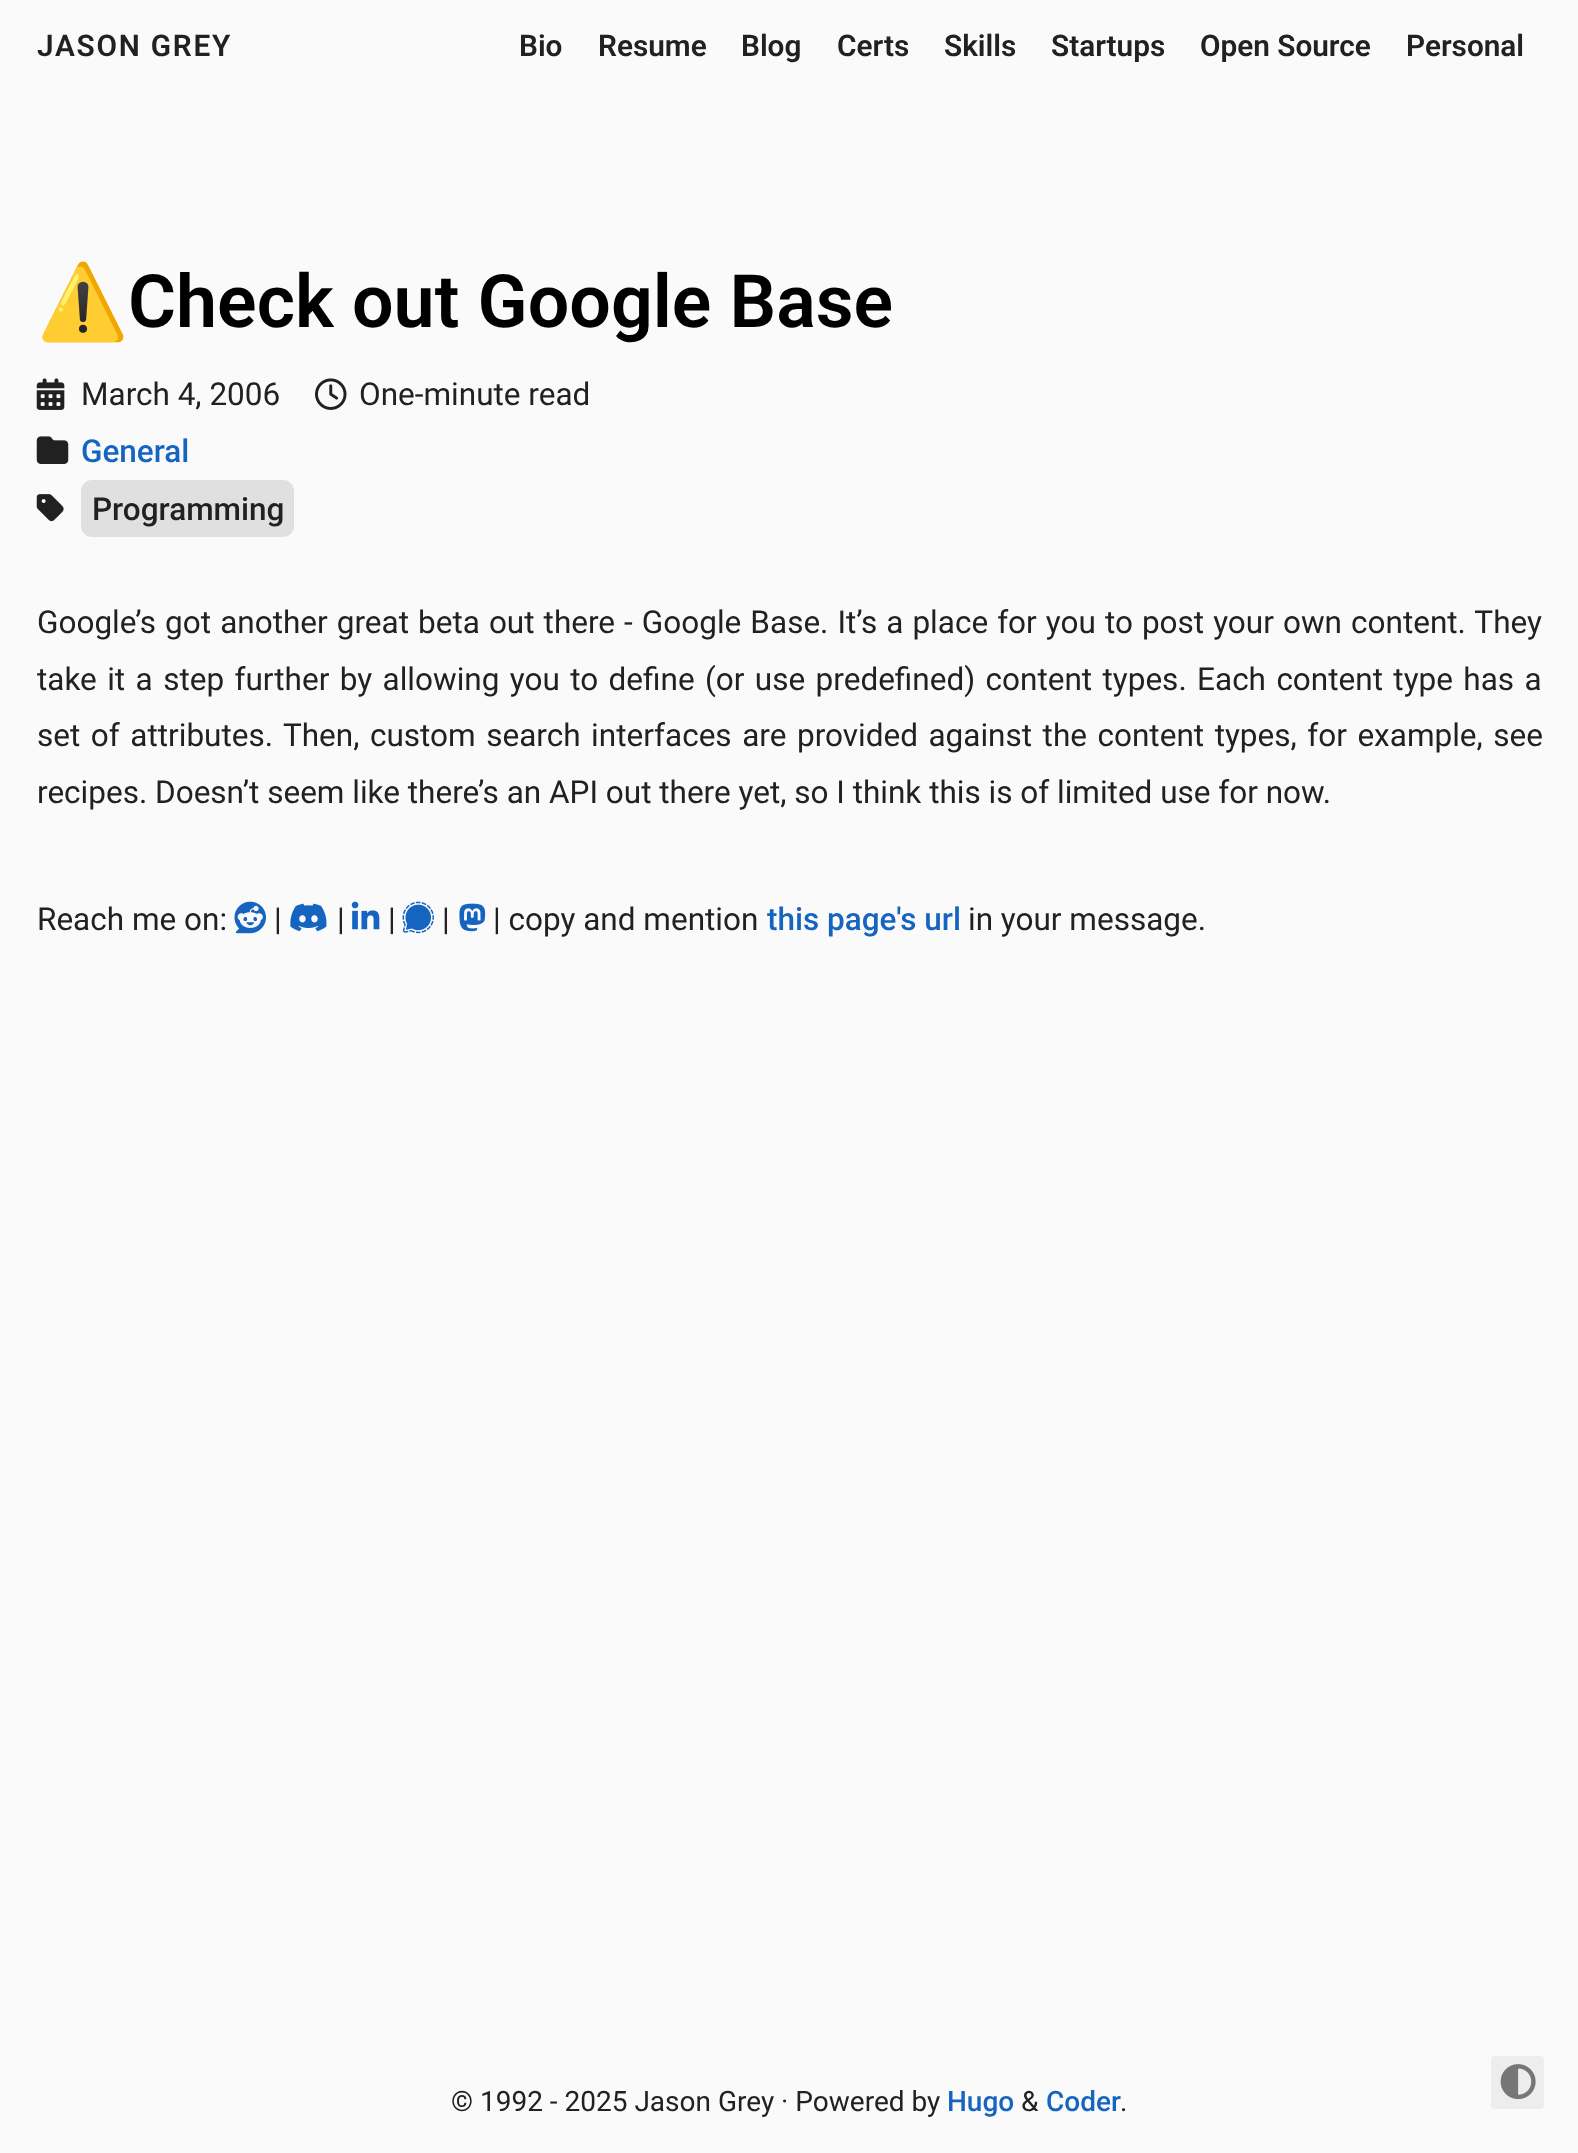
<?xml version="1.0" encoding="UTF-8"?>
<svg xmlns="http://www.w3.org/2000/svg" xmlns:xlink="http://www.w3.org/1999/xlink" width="1578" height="2153">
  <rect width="100%" height="100%" fill="#fafafa" />
  <image x="36" y="378" width="29" height="32" xlink:href="image1.png" />
  <image x="315" y="378" width="32" height="32" xlink:href="image2.png" />
  <image x="36" y="436" width="33" height="28" xlink:href="image3.png" />
  <image x="36" y="494" width="28" height="28" xlink:href="image4.png" />
  <rect x="81" y="480" width="213" height="57" rx="11" fill="#e0e0e0" />
  <image x="234" y="901" width="32" height="33" xlink:href="image5.png" />
  <image x="290" y="903" width="37" height="29" xlink:href="image6.png" />
  <image x="351" y="901" width="29" height="29" xlink:href="image7.png" />
  <image x="402" y="901" width="32" height="33" xlink:href="image8.png" />
  <image x="459" y="903" width="27" height="29" xlink:href="image9.png" />
  <rect x="1491" y="2056" width="53" height="53" rx="4" fill="#ededed" />
  <image x="1500" y="2064" width="36" height="36" xlink:href="image10.png" />
  <text x="37" y="56" style="font-family: Roboto; font-size: 29.75px; font-weight: 600; letter-spacing: 1.75px; fill: #212121">JASON GREY</text>
  <text x="519" y="56" style="font-family: Roboto; font-size: 29.75px; font-weight: 600; fill: #212121">Bio</text>
  <text x="598" y="56" style="font-family: Roboto; font-size: 29.75px; font-weight: 600; fill: #212121">Resume</text>
  <text x="741" y="56" style="font-family: Roboto; font-size: 29.75px; font-weight: 600; fill: #212121">Blog</text>
  <text x="837" y="56" style="font-family: Roboto; font-size: 29.75px; font-weight: 600; fill: #212121">Certs</text>
  <text x="944" y="56" style="font-family: Roboto; font-size: 29.75px; font-weight: 600; fill: #212121">Skills</text>
  <text x="1051" y="56" style="font-family: Roboto; font-size: 29.75px; font-weight: 600; fill: #212121">Startups</text>
  <text x="1200" y="56" style="font-family: Roboto; font-size: 29.75px; font-weight: 600; fill: #212121">Open Source</text>
  <text x="1406" y="56" style="font-family: Roboto; font-size: 29.75px; font-weight: 600; fill: #212121">Personal</text>
  <text x="37" y="327" style="font-family: Noto Color Emoji; font-size: 73.5px; font-weight: bold; fill: #000000">⚠️</text>
  <text x="128" y="327" style="font-family: Roboto; font-size: 73.5px; font-weight: 600; fill: #000000">Check out Google Base</text>
  <text x="81" y="405" style="font-family: Roboto; font-size: 31.5px; fill: #212121">March 4, 2006</text>
  <text x="359" y="405" style="font-family: Roboto; font-size: 31.5px; fill: #212121">One-minute read</text>
  <text x="81" y="462" style="font-family: Roboto; font-size: 31.5px; font-weight: 500; fill: #1565c0">General</text>
  <text x="92" y="520" style="font-family: Roboto; font-size: 31.5px; font-weight: 500; fill: #212121">Programming</text>
  <text x="37" y="633" word-spacing="1.25" style="font-family: Roboto; font-size: 31.5px; fill: #212121">Google’s got another great beta out there - Google Base. It’s a place for you to post your own content. They</text>
  <text x="37" y="690" word-spacing="2.6" style="font-family: Roboto; font-size: 31.5px; fill: #212121">take it a step further by allowing you to define (or use predefined) content types. Each content type has a</text>
  <text x="37" y="746" word-spacing="2.75" style="font-family: Roboto; font-size: 31.5px; fill: #212121">set of attributes. Then, custom search interfaces are provided against the content types, for example, see</text>
  <text x="37" y="803" style="font-family: Roboto; font-size: 31.5px; fill: #212121">recipes. Doesn’t seem like there’s an API out there yet, so I think this is of limited use for now.</text>
  <text x="37" y="930" style="font-family: Roboto; font-size: 31.5px; fill: #212121">Reach me on:</text>
  <text x="274" y="930" style="font-family: Roboto; font-size: 31.5px; fill: #212121">|</text>
  <text x="337" y="930" style="font-family: Roboto; font-size: 31.5px; fill: #212121">|</text>
  <text x="388" y="930" style="font-family: Roboto; font-size: 31.5px; fill: #212121">|</text>
  <text x="442" y="930" style="font-family: Roboto; font-size: 31.5px; fill: #212121">|</text>
  <text x="493" y="930" style="font-family: Roboto; font-size: 31.5px; fill: #212121">| copy and mention</text>
  <text x="767" y="930" style="font-family: Roboto; font-size: 31.5px; font-weight: 500; fill: #1565c0">this page's url</text>
  <text x="968" y="930" style="font-family: Roboto; font-size: 31.5px; fill: #212121">in your message.</text>
  <text x="451" y="2111" style="font-family: Roboto; font-size: 28px; fill: #212121">© 1992 - 2025 Jason Grey · Powered by</text>
  <text x="947" y="2111" style="font-family: Roboto; font-size: 28px; font-weight: 500; fill: #1565c0">Hugo</text>
  <text x="1021" y="2111" style="font-family: Roboto; font-size: 28px; fill: #212121">&amp;</text>
  <text x="1046" y="2111" style="font-family: Roboto; font-size: 28px; font-weight: 500; fill: #1565c0">Coder</text>
  <text x="1120" y="2111" style="font-family: Roboto; font-size: 28px; fill: #212121">.</text>
</svg>
